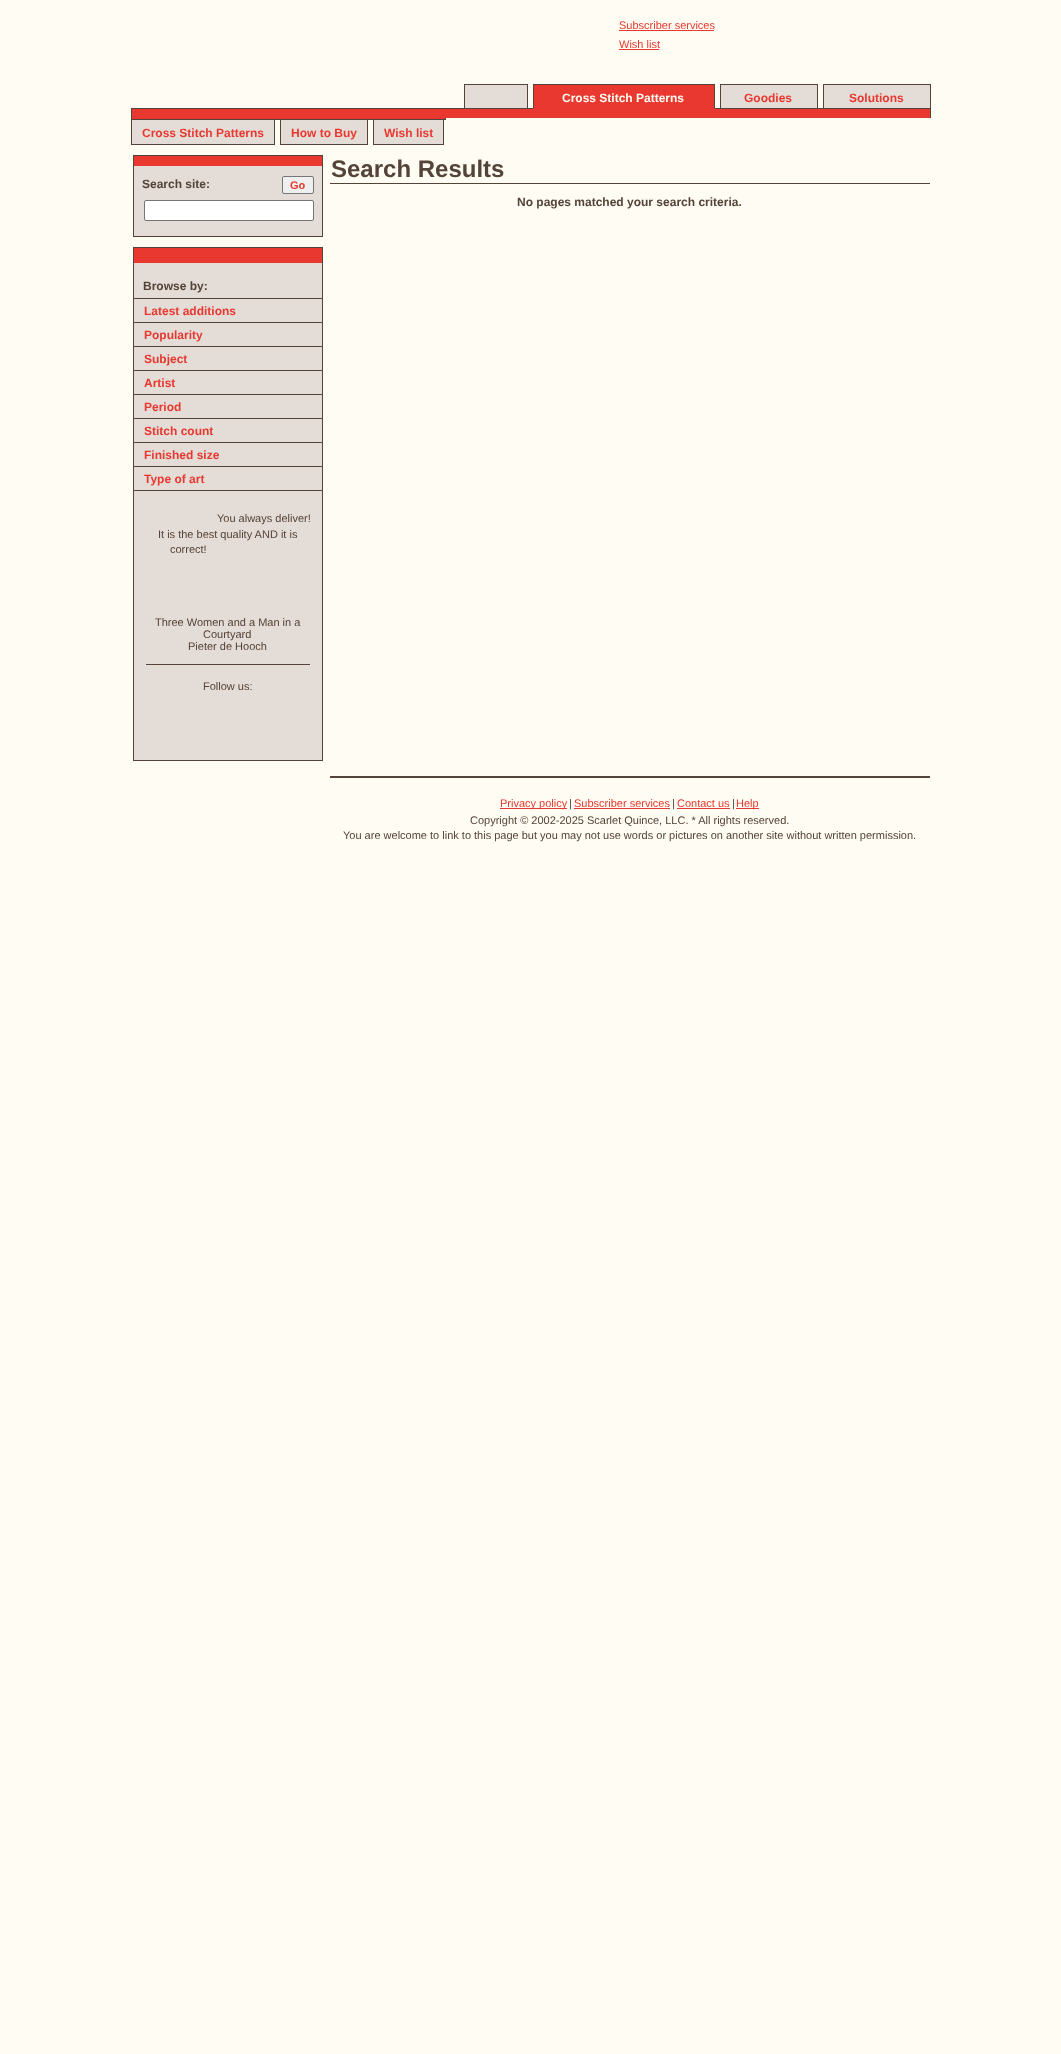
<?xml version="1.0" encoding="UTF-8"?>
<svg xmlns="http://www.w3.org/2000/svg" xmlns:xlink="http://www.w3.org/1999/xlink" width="1061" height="2054">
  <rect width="100%" height="100%" fill="#fffcf3" />
  <rect x="619" y="30" width="95" height="1" fill="#e83830" />
  <rect x="619" y="49" width="40" height="1" fill="#e83830" />
  <rect x="465" y="85" width="62" height="23" fill="#e4dcd6" />
  <rect x="464" y="84" width="64" height="1" fill="#544338" />
  <rect x="527" y="84" width="1" height="26" fill="#544338" />
  <rect x="464" y="84" width="1" height="26" fill="#544338" />
  <rect x="534" y="85" width="180" height="23" fill="#e83830" />
  <rect x="533" y="84" width="182" height="1" fill="#544338" />
  <rect x="714" y="84" width="1" height="26" fill="#544338" />
  <rect x="533" y="84" width="1" height="26" fill="#544338" />
  <rect x="721" y="85" width="96" height="23" fill="#e4dcd6" />
  <rect x="720" y="84" width="98" height="1" fill="#544338" />
  <rect x="817" y="84" width="1" height="26" fill="#544338" />
  <rect x="720" y="84" width="1" height="26" fill="#544338" />
  <rect x="824" y="85" width="106" height="23" fill="#e4dcd6" />
  <rect x="823" y="84" width="108" height="1" fill="#544338" />
  <rect x="930" y="84" width="1" height="26" fill="#544338" />
  <rect x="823" y="84" width="1" height="26" fill="#544338" />
  <rect x="132" y="109" width="396" height="9" fill="#e83830" />
  <rect x="131" y="108" width="397" height="1" fill="#544338" />
  <rect x="131" y="108" width="1" height="10" fill="#544338" />
  <rect x="528" y="108" width="192" height="10" fill="#e83830" />
  <rect x="528" y="108" width="5" height="1" fill="#544338" />
  <rect x="715" y="108" width="103" height="1" fill="#544338" />
  <rect x="818" y="108" width="5" height="10" fill="#e83830" />
  <rect x="818" y="108" width="113" height="1" fill="#544338" />
  <rect x="720" y="109" width="98" height="9" fill="#e83830" />
  <rect x="823" y="109" width="107" height="9" fill="#e83830" />
  <rect x="930" y="108" width="1" height="10" fill="#544338" />
  <rect x="131" y="118" width="314" height="1" fill="#e83830" />
  <rect x="131" y="119" width="314" height="1" fill="#544338" />
  <rect x="131" y="118" width="1" height="2" fill="#544338" />
  <rect x="445" y="118" width="1" height="2" fill="#544338" />
  <rect x="132" y="120" width="142" height="24" fill="#e4dcd6" />
  <rect x="274" y="120" width="1" height="25" fill="#544338" />
  <rect x="131" y="144" width="144" height="1" fill="#544338" />
  <rect x="131" y="120" width="1" height="25" fill="#544338" />
  <rect x="281" y="120" width="86" height="24" fill="#e4dcd6" />
  <rect x="367" y="120" width="1" height="25" fill="#544338" />
  <rect x="280" y="144" width="88" height="1" fill="#544338" />
  <rect x="280" y="120" width="1" height="25" fill="#544338" />
  <rect x="374" y="120" width="69" height="24" fill="#e4dcd6" />
  <rect x="443" y="120" width="1" height="25" fill="#544338" />
  <rect x="373" y="144" width="71" height="1" fill="#544338" />
  <rect x="373" y="120" width="1" height="25" fill="#544338" />
  <rect x="134" y="156" width="188" height="10" fill="#e83830" />
  <rect x="133" y="155" width="190" height="1" fill="#544338" />
  <rect x="322" y="155" width="1" height="82" fill="#544338" />
  <rect x="133" y="155" width="1" height="11" fill="#544338" />
  <rect x="134" y="166" width="188" height="70" fill="#e4dcd6" />
  <rect x="133" y="236" width="190" height="1" fill="#544338" />
  <rect x="133" y="166" width="1" height="71" fill="#544338" />
  <rect x="282.5" y="176.5" width="31" height="17" rx="1.5" fill="#efefef" stroke="#767676" />
  <rect x="144.5" y="200.5" width="169" height="20" rx="1.5" fill="#ffffff" stroke="#767676" />
  <rect x="134" y="248" width="188" height="15" fill="#e83830" />
  <rect x="133" y="247" width="190" height="1" fill="#544338" />
  <rect x="322" y="247" width="1" height="514" fill="#544338" />
  <rect x="133" y="247" width="1" height="16" fill="#544338" />
  <rect x="134" y="263" width="188" height="497" fill="#e4dcd6" />
  <rect x="133" y="760" width="190" height="1" fill="#544338" />
  <rect x="133" y="263" width="1" height="498" fill="#544338" />
  <rect x="134" y="298" width="188" height="1" fill="#544338" />
  <rect x="134" y="322" width="188" height="1" fill="#544338" />
  <rect x="134" y="346" width="188" height="1" fill="#544338" />
  <rect x="134" y="370" width="188" height="1" fill="#544338" />
  <rect x="134" y="394" width="188" height="1" fill="#544338" />
  <rect x="134" y="418" width="188" height="1" fill="#544338" />
  <rect x="134" y="442" width="188" height="1" fill="#544338" />
  <rect x="134" y="466" width="188" height="1" fill="#544338" />
  <rect x="134" y="490" width="188" height="1" fill="#544338" />
  <rect x="146" y="664" width="164" height="1" fill="#544338" />
  <rect x="330" y="183" width="600" height="1" fill="#544338" />
  <rect x="330" y="776" width="600" height="2" fill="#544338" />
  <rect x="500" y="808" width="67" height="1" fill="#e83830" />
  <rect x="574" y="808" width="96" height="1" fill="#e83830" />
  <rect x="677" y="808" width="53" height="1" fill="#e83830" />
  <rect x="736" y="808" width="23" height="1" fill="#e83830" />
  <text x="619" y="29" style="font-family: Liberation Sans; font-size: 11px; fill: #e83830">Subscriber services</text>
  <text x="619" y="48" style="font-family: Liberation Sans; font-size: 11px; fill: #e83830">Wish list</text>
  <text x="562" y="102" style="font-family: Liberation Sans; font-size: 12px; font-weight: bold; fill: #fffcf3">Cross Stitch Patterns</text>
  <text x="744" y="102" style="font-family: Liberation Sans; font-size: 12px; font-weight: bold; fill: #e83830">Goodies</text>
  <text x="849" y="102" style="font-family: Liberation Sans; font-size: 12px; font-weight: bold; fill: #e83830">Solutions</text>
  <text x="142" y="137" style="font-family: Liberation Sans; font-size: 12px; font-weight: bold; fill: #e83830">Cross Stitch Patterns</text>
  <text x="291" y="137" style="font-family: Liberation Sans; font-size: 12px; font-weight: bold; fill: #e83830">How to Buy</text>
  <text x="384" y="137" style="font-family: Liberation Sans; font-size: 12px; font-weight: bold; fill: #e83830">Wish list</text>
  <text x="142" y="188" style="font-family: Liberation Sans; font-size: 12px; font-weight: bold; fill: #544338">Search site:</text>
  <text x="290" y="189" style="font-family: Liberation Sans; font-size: 11px; font-weight: bold; fill: #e83830">Go</text>
  <text x="143" y="290" style="font-family: Liberation Sans; font-size: 12px; font-weight: bold; fill: #544338">Browse by:</text>
  <text x="144" y="315" style="font-family: Liberation Sans; font-size: 12px; font-weight: bold; fill: #e83830">Latest additions</text>
  <text x="144" y="339" style="font-family: Liberation Sans; font-size: 12px; font-weight: bold; fill: #e83830">Popularity</text>
  <text x="144" y="363" style="font-family: Liberation Sans; font-size: 12px; font-weight: bold; fill: #e83830">Subject</text>
  <text x="144" y="387" style="font-family: Liberation Sans; font-size: 12px; font-weight: bold; fill: #e83830">Artist</text>
  <text x="144" y="411" style="font-family: Liberation Sans; font-size: 12px; font-weight: bold; fill: #e83830">Period</text>
  <text x="144" y="435" style="font-family: Liberation Sans; font-size: 12px; font-weight: bold; fill: #e83830">Stitch count</text>
  <text x="144" y="459" style="font-family: Liberation Sans; font-size: 12px; font-weight: bold; fill: #e83830">Finished size</text>
  <text x="144" y="483" style="font-family: Liberation Sans; font-size: 12px; font-weight: bold; fill: #e83830">Type of art</text>
  <text x="217" y="522" style="font-family: Liberation Sans; font-size: 11px; fill: #544338">You always deliver!</text>
  <text x="158" y="538" style="font-family: Liberation Sans; font-size: 11px; fill: #544338">It is the best quality AND it is</text>
  <text x="170" y="553" style="font-family: Liberation Sans; font-size: 11px; fill: #544338">correct!</text>
  <text x="155" y="626" style="font-family: Liberation Sans; font-size: 11px; fill: #544338">Three Women and a Man in a</text>
  <text x="203" y="638" style="font-family: Liberation Sans; font-size: 11px; fill: #544338">Courtyard</text>
  <text x="188" y="650" style="font-family: Liberation Sans; font-size: 11px; fill: #544338">Pieter de Hooch</text>
  <text x="203" y="690" style="font-family: Liberation Sans; font-size: 11px; fill: #544338">Follow us:</text>
  <text x="331" y="177" style="font-family: Liberation Sans; font-size: 24px; font-weight: bold; fill: #544338">Search Results</text>
  <text x="517" y="206" style="font-family: Liberation Sans; font-size: 12px; font-weight: bold; fill: #544338">No pages matched your search criteria.</text>
  <text x="500" y="807" style="font-family: Liberation Sans; font-size: 11px; fill: #e83830">Privacy policy</text>
  <text x="569" y="807" style="font-family: Liberation Sans; font-size: 11px; fill: #544338">|</text>
  <text x="574" y="807" style="font-family: Liberation Sans; font-size: 11px; fill: #e83830">Subscriber services</text>
  <text x="672" y="807" style="font-family: Liberation Sans; font-size: 11px; fill: #544338">|</text>
  <text x="677" y="807" style="font-family: Liberation Sans; font-size: 11px; fill: #e83830">Contact us</text>
  <text x="732" y="807" style="font-family: Liberation Sans; font-size: 11px; fill: #544338">|</text>
  <text x="736" y="807" style="font-family: Liberation Sans; font-size: 11px; fill: #e83830">Help</text>
  <text x="470" y="824" style="font-family: Liberation Sans; font-size: 11px; fill: #544338">Copyright © 2002-2025 Scarlet Quince, LLC. * All rights reserved.</text>
  <text x="343" y="839" style="font-family: Liberation Sans; font-size: 11px; fill: #544338">You are welcome to link to this page but you may not use words or pictures on another site without written permission.</text>
</svg>
